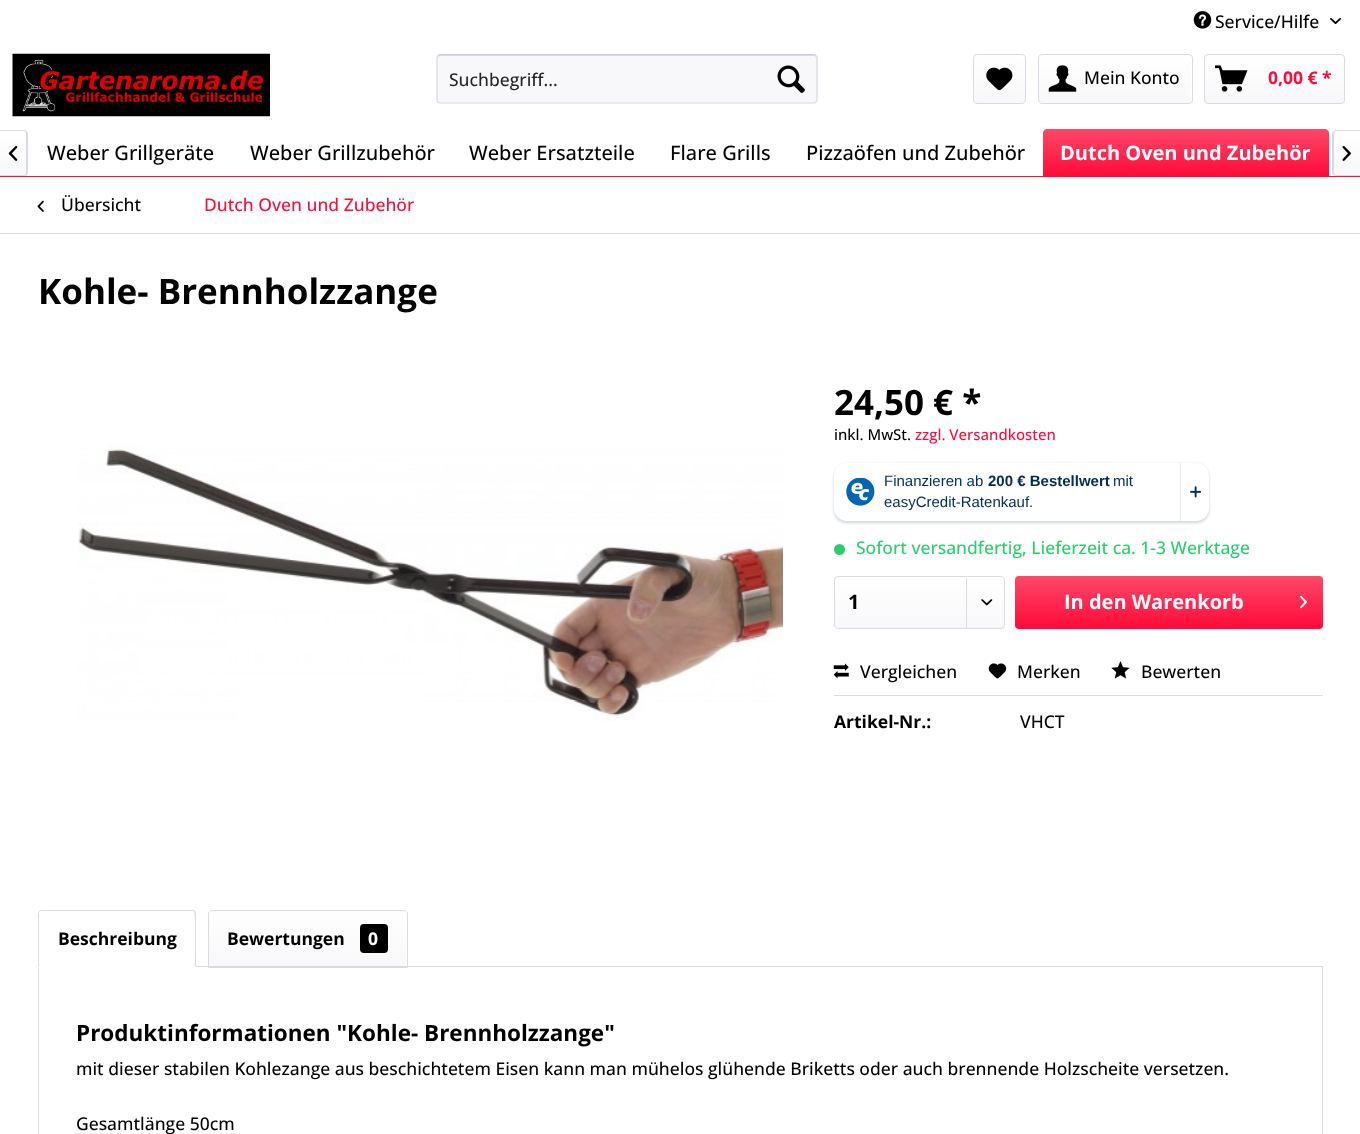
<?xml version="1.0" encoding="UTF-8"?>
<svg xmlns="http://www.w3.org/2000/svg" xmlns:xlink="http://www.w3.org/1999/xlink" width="1360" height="1134">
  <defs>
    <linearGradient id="g1" gradientUnits="userSpaceOnUse" x1="999" y1="55" x2="999" y2="103"><stop offset="0" stop-color="#ffffff" /><stop offset="1" stop-color="#f8f8fa" /></linearGradient>
    <linearGradient id="g2" gradientUnits="userSpaceOnUse" x1="1115" y1="55" x2="1115" y2="103"><stop offset="0" stop-color="#ffffff" /><stop offset="1" stop-color="#f8f8fa" /></linearGradient>
    <linearGradient id="g3" gradientUnits="userSpaceOnUse" x1="1274" y1="55" x2="1274" y2="103"><stop offset="0" stop-color="#ffffff" /><stop offset="1" stop-color="#f8f8fa" /></linearGradient>
    <linearGradient id="g4" gradientUnits="userSpaceOnUse" x1="13" y1="131" x2="13" y2="175"><stop offset="0" stop-color="#ffffff" /><stop offset="1" stop-color="#f8f8fa" /></linearGradient>
    <linearGradient id="g5" gradientUnits="userSpaceOnUse" x1="1186" y1="129" x2="1186" y2="176"><stop offset="0" stop-color="#ff4769" /><stop offset="1" stop-color="#fe0b38" /></linearGradient>
    <linearGradient id="g6" gradientUnits="userSpaceOnUse" x1="1347" y1="131" x2="1347" y2="175"><stop offset="0" stop-color="#ffffff" /><stop offset="1" stop-color="#f8f8fa" /></linearGradient>
    <linearGradient id="g7" gradientUnits="userSpaceOnUse" x1="919" y1="578" x2="919" y2="628"><stop offset="0" stop-color="#ffffff" /><stop offset="1" stop-color="#f8f8fa" /></linearGradient>
    <linearGradient id="g8" gradientUnits="userSpaceOnUse" x1="1169" y1="576" x2="1169" y2="629"><stop offset="0" stop-color="#ff4769" /><stop offset="1" stop-color="#fe0b38" /></linearGradient>
    <linearGradient id="g9" gradientUnits="userSpaceOnUse" x1="308" y1="911" x2="308" y2="966"><stop offset="0" stop-color="#ffffff" /><stop offset="1" stop-color="#f8f8fa" /></linearGradient>
  </defs>
  <rect width="100%" height="100%" fill="#ffffff" />
  <image x="1193" y="11" width="19" height="18" xlink:href="image1.png" />
  <image x="1330" y="17" width="11" height="8" xlink:href="image2.png" />
  <image x="12" y="53" width="258" height="64" xlink:href="image3.png" />
  <rect x="436" y="54" width="382" height="50" rx="4" fill="#f8f8fa" />
  <path d="M 440 56 h 374 c 1 0 2 1 2 3 v -1 c 0 -2 -1 -3 -2 -3 h -374 c -1 0 -2 1 -2 3 v 1 c 0 -2 1 -3 2 -3 z" fill="#dadae5" />
  <path d="M 438 55.5 l 2 -1 h 374 l 2 1" fill="none" stroke="#cbcbdb" stroke-width="1.2" />
  <path d="M 816 55.5 l 1 2 v 42.5 l -1 2 l -2 1 h -374 l -2 -1 l -1 -2 v -42.5 l 1 -2" fill="none" stroke="#dadae5" stroke-width="1.2" />
  <image x="777" y="65" width="28" height="28" xlink:href="image4.png" />
  <rect x="974" y="55" width="51" height="48" rx="2.5" fill="url(#g1)" />
  <rect x="973.5" y="54.5" width="52" height="49" rx="3.5" fill="none" stroke="#dadae5" />
  <image x="986" y="67" width="27" height="24" xlink:href="image5.png" />
  <rect x="1039" y="55" width="152" height="48" rx="2.5" fill="url(#g2)" />
  <rect x="1038.5" y="54.5" width="154" height="49" rx="3.5" fill="none" stroke="#dadae5" />
  <image x="1048" y="65" width="29" height="27" xlink:href="image6.png" />
  <rect x="1205" y="55" width="139" height="48" rx="2.5" fill="url(#g3)" />
  <rect x="1204.5" y="54.5" width="140" height="49" rx="3.5" fill="none" stroke="#dadae5" />
  <image x="1215" y="65" width="33" height="27" xlink:href="image7.png" />
  <rect y="176" width="1360" height="1" fill="#fe0b38" />
  <path d="M 0 131 h 23.5 c 1.5 0 2.5 1 2.5 2.5 v 39 c 0 1.5 -1 2.5 -2.5 2.5 h -23.5 z" fill="url(#g4)" />
  <path d="M 0 130 h 24 c 2 0 4 2 4 4 v 38 c 0 3 -2 4 -4 4 h -24 z m 0 1 h 24 c 1 0 2 1 2 3 v 38 c 0 2 -1 3 -2 3 h -24 z" fill="#dadae5" fill-rule="evenodd" />
  <image x="8" y="146" width="10" height="15" xlink:href="image8.png" />
  <path d="M 1047 129 h 278 c 2 0 4 2 4 4 v 43 h -286 v -43 c 0 -2 2 -4 4 -4 z" fill="url(#g5)" />
  <path d="M 1336.5 131 h 23.5 v 44 h -23.5 c -1.5 0 -2.5 -1 -2.5 -2.5 v -39 c 0 -1.5 1 -2.5 2.5 -2.5 z" fill="url(#g6)" />
  <path d="M 1336 130 h 24 v 46 h -24 c -2 0 -4 -1 -4 -4 v -38 c 0 -2 2 -4 4 -4 z m 0 1 h 24 v 44 h -24 c -1 0 -2 -1 -2 -3 v -38 c 0 -2 1 -3 2 -3 z" fill="#dadae5" fill-rule="evenodd" />
  <image x="1342" y="146" width="9" height="15" xlink:href="image9.png" />
  <rect y="233" width="1360" height="1" fill="#dadae5" />
  <image x="37" y="200" width="7" height="12" xlink:href="image10.png" />
  <image x="78" y="444" width="705" height="277" xlink:href="image11.png" />
  <rect x="834" y="464" width="375" height="59" rx="13" fill="#002c5a" fill-opacity="0.2" filter="blur(1.5px)" />
  <rect x="834" y="463" width="375" height="58" rx="13" fill="#ffffff" />
  <image x="846" y="478" width="29" height="28" xlink:href="image12.png" />
  <rect x="1180" y="463" width="1" height="58" fill="#e6eaef" />
  <image x="1190" y="486" width="11" height="12" xlink:href="image13.png" />
  <circle cx="839.5" cy="549.5" r="5.5" fill="#2ecc71" />
  <rect x="835" y="578" width="169" height="50" rx="2.5" fill="url(#g7)" />
  <rect x="834.5" y="576.5" width="170" height="52" rx="3.5" fill="none" stroke="#dadae5" />
  <rect x="966" y="578" width="1" height="50" fill="#dadae5" />
  <image x="981" y="599" width="12" height="7" xlink:href="image14.png" />
  <rect x="1015" y="576" width="308" height="53" rx="4" fill="url(#g8)" />
  <image x="1300" y="595" width="7" height="14" xlink:href="image15.png" />
  <rect x="834" y="695" width="489" height="1" fill="#dadae5" />
  <image x="833" y="663" width="16" height="16" xlink:href="image16.png" />
  <image x="988" y="663" width="19" height="16" xlink:href="image17.png" />
  <image x="1111" y="661" width="19" height="18" xlink:href="image18.png" />
  <rect x="38.5" y="966.5" width="1284" height="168" fill="none" stroke="#dadae5" />
  <path d="M 42 910 h 150 c 2 0 4 2 4 4 v 54 h -158 v -54 c 0 -2 2 -4 4 -4 z" fill="#ffffff" />
  <path d="M 41 910 l -2 1 v 1 l 2 -1 h 152 l 1 1 l 1 -1 c -1 -1 -2 -1 -3 -1 z" fill="#dadae5" />
  <path d="M 195 911 c 1 1 1 2 1 3 v 53 l -1 -1 c 0 -6 1 -52 -1 -54 z" fill="#dadae5" />
  <path d="M 38 968 l 1 -2 h 156 l 1 1 z" fill="#ffffff" />
  <path d="M 39 911 l -1 3 v 53 l 1 -1 v -52 v -2 z" fill="#dadae5" />
  <path d="M 211.5 911 h 192 c 1.5 0 2.5 1 2.5 2.5 v 52.5 h -197 v -52.5 c 0 -1.5 1 -2.5 2.5 -2.5 z" fill="url(#g9)" />
  <path d="M 212 910.5 h 192 c 2 0 3.5 1.5 3.5 3.5 v 53.5 h -199 v -53.5 c 0 -2 1.5 -3.5 3.5 -3.5 z" fill="none" stroke="#dadae5" />
  <rect x="360" y="924" width="28" height="29" rx="4" fill="#000000" />
  <text x="1215" y="28" style="font-family: Open Sans; font-size: 17.5px; font-weight: 500; fill: #000000">Service/Hilfe</text>
  <text x="449" y="86" style="font-family: Open Sans; font-size: 17.5px; font-weight: 500; fill: #262626">Suchbegriff...</text>
  <text x="1084" y="84" style="font-family: Open Sans; font-size: 17.5px; font-weight: 500; fill: #000000">Mein Konto</text>
  <text x="1268" y="84" style="font-family: Open Sans; font-size: 17.5px; font-weight: bold; fill: #fe0b38">0,00 € *</text>
  <text x="47" y="160" style="font-family: Open Sans; font-size: 20px; font-weight: 500; fill: #000000">Weber Grillgeräte</text>
  <text x="250" y="160" style="font-family: Open Sans; font-size: 20px; font-weight: 500; fill: #000000">Weber Grillzubehör</text>
  <text x="469" y="160" style="font-family: Open Sans; font-size: 20px; font-weight: 500; fill: #000000">Weber Ersatzteile</text>
  <text x="670" y="160" style="font-family: Open Sans; font-size: 20px; font-weight: 500; fill: #000000">Flare Grills</text>
  <text x="806" y="160" style="font-family: Open Sans; font-size: 20px; font-weight: 500; fill: #000000">Pizzaöfen und Zubehör</text>
  <text x="1060" y="160" style="font-family: Open Sans; font-size: 20px; font-weight: bold; fill: #ffffff">Dutch Oven und Zubehör</text>
  <text x="61" y="211" style="font-family: Open Sans; font-size: 17.5px; font-weight: 500; fill: #000000">Übersicht</text>
  <text x="204" y="211" style="font-family: Open Sans; font-size: 17.5px; font-weight: 500; fill: #fe0b38">Dutch Oven und Zubehör</text>
  <text x="38" y="304" style="font-family: Open Sans; font-size: 35px; font-weight: bold; fill: #000000">Kohle- Brennholzzange</text>
  <text x="834" y="415" style="font-family: Open Sans; font-size: 35px; font-weight: bold; fill: #000000">24,50 € *</text>
  <text x="834" y="440" style="font-family: Open Sans; font-size: 15px; font-weight: 500; fill: #000000">inkl. MwSt.</text>
  <text x="915" y="440" style="font-family: Open Sans; font-size: 15px; font-weight: 500; fill: #fe0b38">zzgl. Versandkosten</text>
  <text x="884" y="486" style="font-family: Liberation Sans; font-size: 15px; fill: #002c5a">Finanzieren ab</text>
  <text x="988" y="486" style="font-family: Liberation Sans; font-size: 15px; font-weight: bold; fill: #002c5a">200 € Bestellwert</text>
  <text x="1113" y="486" style="font-family: Liberation Sans; font-size: 15px; fill: #002c5a">mit</text>
  <text x="884" y="507" style="font-family: Liberation Sans; font-size: 15px; fill: #002c5a">easyCredit-Ratenkauf.</text>
  <text x="856" y="554" style="font-family: Open Sans; font-size: 17.5px; font-weight: 500; fill: #2ecc71">Sofort versandfertig, Lieferzeit ca. 1-3 Werktage</text>
  <text x="848" y="609" style="font-family: Open Sans; font-size: 20px; font-weight: bold; fill: #000000">1</text>
  <text x="1064" y="609" style="font-family: Open Sans; font-size: 20px; font-weight: bold; fill: #ffffff">In den Warenkorb</text>
  <text x="860" y="678" style="font-family: Open Sans; font-size: 17.5px; font-weight: 500; fill: #000000">Vergleichen</text>
  <text x="1017" y="678" style="font-family: Open Sans; font-size: 17.5px; font-weight: 500; fill: #000000">Merken</text>
  <text x="1141" y="678" style="font-family: Open Sans; font-size: 17.5px; font-weight: 500; fill: #000000">Bewerten</text>
  <text x="834" y="728" style="font-family: Open Sans; font-size: 17.5px; font-weight: bold; fill: #000000">Artikel-Nr.:</text>
  <text x="1020" y="728" style="font-family: Open Sans; font-size: 17.5px; font-weight: 500; fill: #000000">VHCT</text>
  <text x="58" y="945" style="font-family: Open Sans; font-size: 17.5px; font-weight: bold; fill: #000000">Beschreibung</text>
  <text x="227" y="945" style="font-family: Open Sans; font-size: 17.5px; font-weight: bold; fill: #000000">Bewertungen</text>
  <text x="368" y="945" style="font-family: Open Sans; font-size: 17.5px; font-weight: bold; fill: #ffffff">0</text>
  <text x="76" y="1041" style="font-family: Open Sans; font-size: 22.5px; font-weight: bold; fill: #000000">Produktinformationen "Kohle- Brennholzzange"</text>
  <text x="76" y="1075" style="font-family: Open Sans; font-size: 17.5px; font-weight: 500; fill: #000000">mit dieser stabilen Kohlezange aus beschichtetem Eisen kann man mühelos glühende Briketts oder auch brennende Holzscheite versetzen.</text>
  <text x="76" y="1130" style="font-family: Open Sans; font-size: 17.5px; font-weight: 500; fill: #000000">Gesamtlänge 50cm</text>
</svg>
